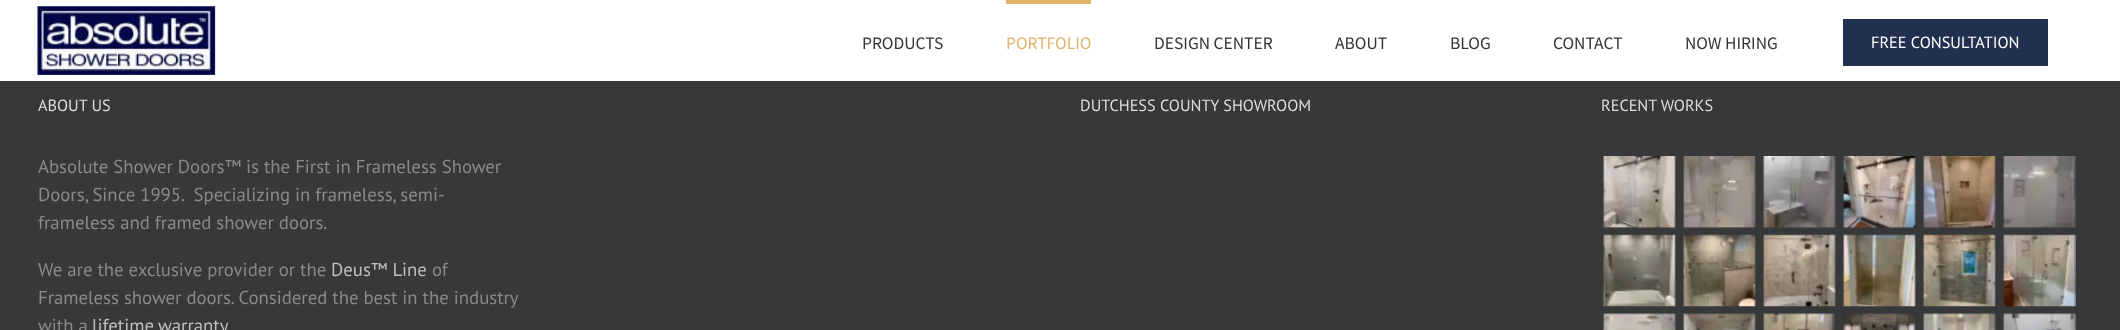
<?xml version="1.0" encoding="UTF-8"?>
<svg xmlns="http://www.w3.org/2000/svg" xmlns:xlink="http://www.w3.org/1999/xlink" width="2120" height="330">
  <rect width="100%" height="100%" fill="#363839" />
  <rect width="2120" height="81" fill="#ffffff" />
  <image x="37" y="6" width="179" height="69" xlink:href="image1.png" />
  <rect x="1006" width="85" height="4" fill="#e0b36b" />
  <rect x="1843" y="19" width="205" height="47" fill="#21304e" />
  <image x="1603" y="156" width="73" height="73" xlink:href="image2.png" />
  <image x="1683" y="156" width="73" height="73" xlink:href="image3.png" />
  <image x="1763" y="156" width="73" height="73" xlink:href="image4.png" />
  <image x="1843" y="156" width="73" height="73" xlink:href="image5.png" />
  <image x="1923" y="156" width="73" height="73" xlink:href="image6.png" />
  <image x="2003" y="156" width="73" height="73" xlink:href="image7.png" />
  <image x="1603" y="234" width="73" height="73" xlink:href="image8.png" />
  <image x="1683" y="234" width="73" height="73" xlink:href="image9.png" />
  <image x="1763" y="234" width="73" height="73" xlink:href="image10.png" />
  <image x="1843" y="234" width="73" height="73" xlink:href="image11.png" />
  <image x="1923" y="234" width="73" height="73" xlink:href="image12.png" />
  <image x="2003" y="234" width="73" height="73" xlink:href="image13.png" />
  <image x="1603" y="313" width="73" height="17" xlink:href="image14.png" />
  <image x="1683" y="313" width="73" height="17" xlink:href="image15.png" />
  <image x="1763" y="313" width="73" height="17" xlink:href="image16.png" />
  <image x="1843" y="313" width="73" height="17" xlink:href="image17.png" />
  <image x="1923" y="313" width="73" height="17" xlink:href="image18.png" />
  <image x="2003" y="313" width="73" height="17" xlink:href="image19.png" />
  <text x="862" y="49" style="font-family: Source Sans Pro; font-size: 17.5px; fill: #333333">PRODUCTS</text>
  <text x="1006" y="49" style="font-family: Source Sans Pro; font-size: 17.5px; fill: #e0b36b">PORTFOLIO</text>
  <text x="1154" y="49" style="font-family: Source Sans Pro; font-size: 17.5px; fill: #333333">DESIGN CENTER</text>
  <text x="1335" y="49" style="font-family: Source Sans Pro; font-size: 17.5px; fill: #333333">ABOUT</text>
  <text x="1450" y="49" style="font-family: Source Sans Pro; font-size: 17.5px; fill: #333333">BLOG</text>
  <text x="1553" y="49" style="font-family: Source Sans Pro; font-size: 17.5px; fill: #333333">CONTACT</text>
  <text x="1685" y="49" style="font-family: Source Sans Pro; font-size: 17.5px; fill: #333333">NOW HIRING</text>
  <text x="1871" y="48" style="font-family: PT Sans; font-size: 16.25px; fill: #ffffff">FREE CONSULTATION</text>
  <text x="38" y="111" style="font-family: PT Sans; font-size: 16.25px; fill: #dddddd">ABOUT US</text>
  <text x="38" y="173" style="font-family: PT Sans; font-size: 18.75px; fill: #8c8989">Absolute Shower Doors™ is the First in Frameless Shower</text>
  <text x="38" y="201" style="font-family: PT Sans; font-size: 18.75px; fill: #8c8989" xml:space="preserve">Doors, Since 1995.  Specializing in frameless, semi-</text>
  <text x="38" y="229" style="font-family: PT Sans; font-size: 18.75px; fill: #8c8989">frameless and framed shower doors.</text>
  <text x="38" y="276" style="font-family: PT Sans; font-size: 18.75px; fill: #8c8989">We are the exclusive provider or the</text>
  <text x="331" y="276" style="font-family: PT Sans; font-size: 18.75px; fill: #bfbfbf">Deus™ Line</text>
  <text x="432" y="276" style="font-family: PT Sans; font-size: 18.75px; fill: #8c8989">of</text>
  <text x="38" y="304" style="font-family: PT Sans; font-size: 18.75px; fill: #8c8989">Frameless shower doors. Considered the best in the industry</text>
  <text x="38" y="332" style="font-family: PT Sans; font-size: 18.75px; fill: #8c8989">with a</text>
  <text x="92" y="332" word-spacing="-1" style="font-family: PT Sans; font-size: 18.75px; fill: #bfbfbf">lifetime warranty</text>
  <text x="1080" y="111" style="font-family: PT Sans; font-size: 16.25px; fill: #dddddd">DUTCHESS COUNTY SHOWROOM</text>
  <text x="1601" y="111" style="font-family: PT Sans; font-size: 16.25px; fill: #dddddd">RECENT WORKS</text>
</svg>
